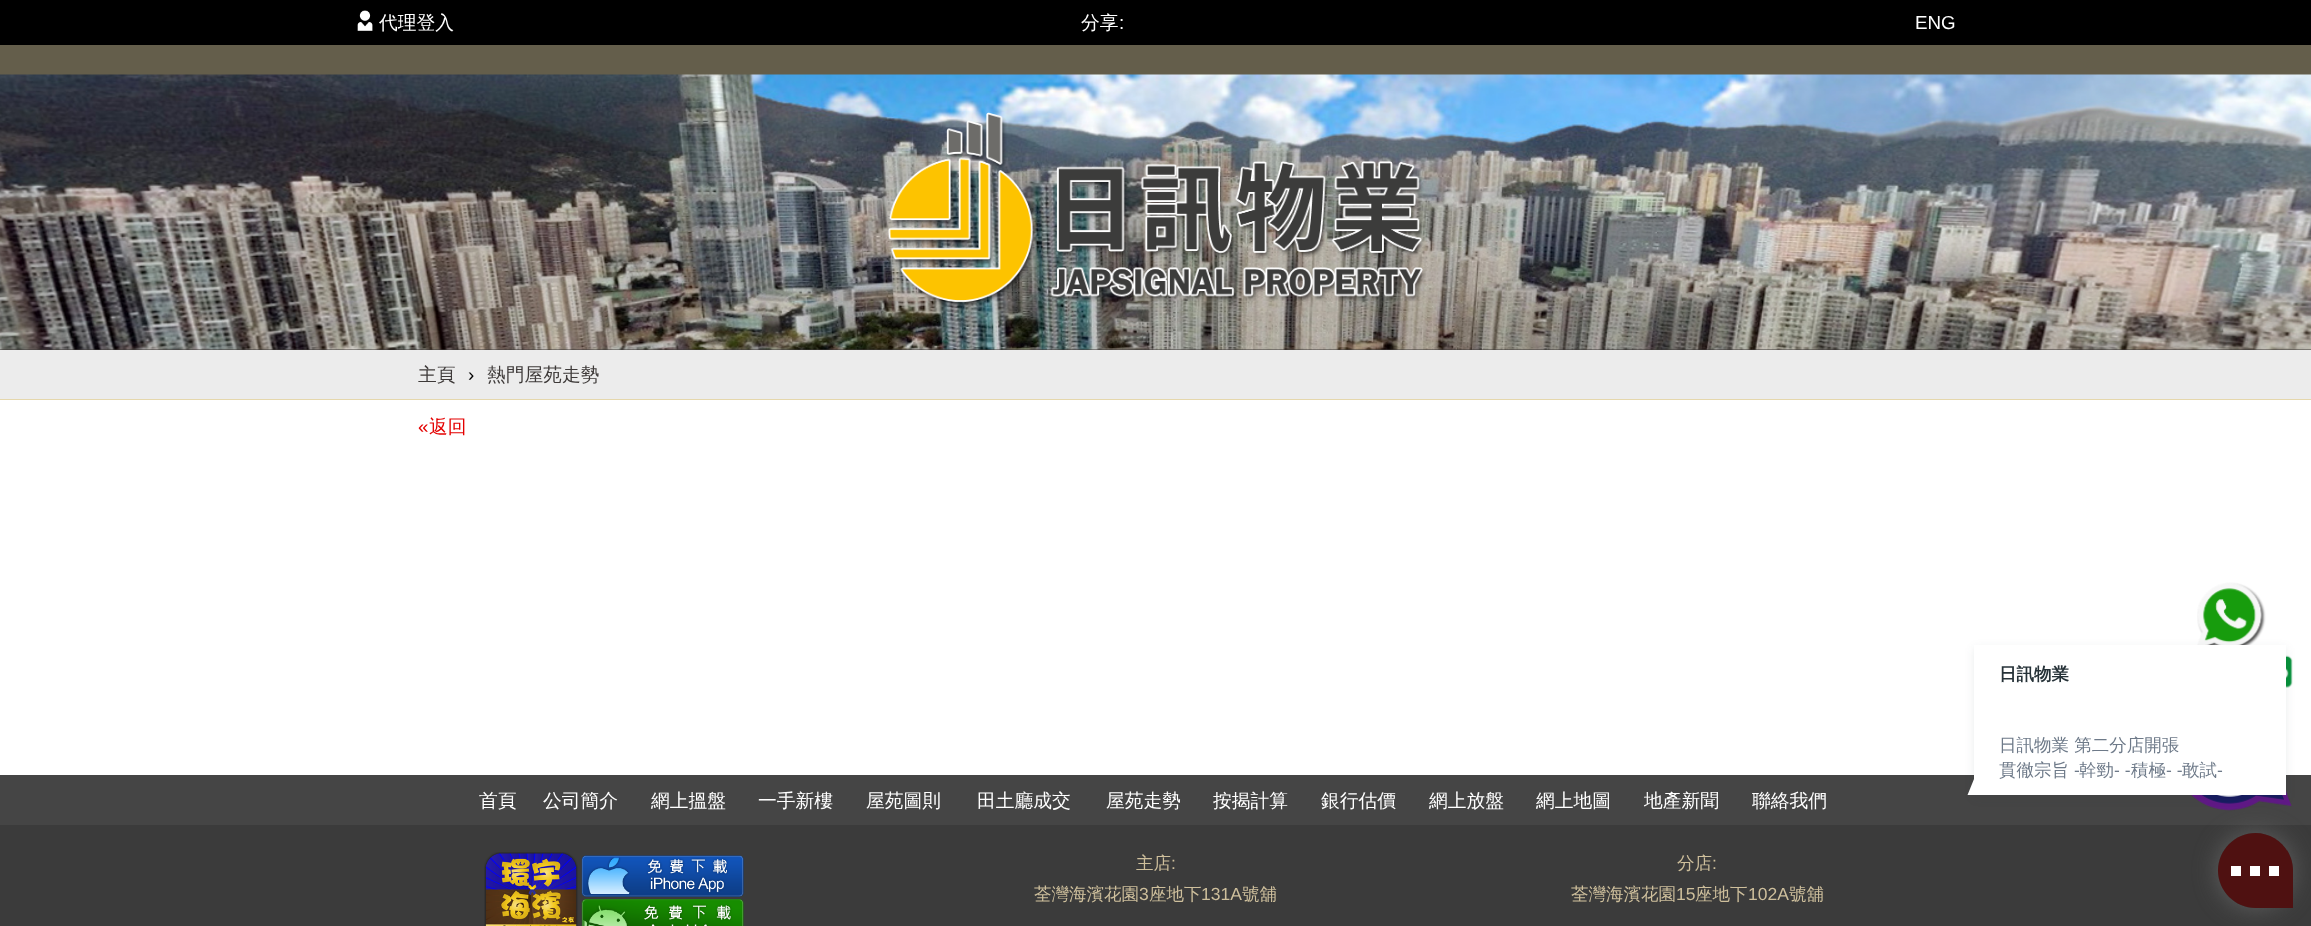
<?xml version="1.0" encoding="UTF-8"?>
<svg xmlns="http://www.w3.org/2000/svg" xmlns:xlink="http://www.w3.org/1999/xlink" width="2311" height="926">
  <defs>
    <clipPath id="clip1"><path d="M 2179 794 h 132 v 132 h -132 z m 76.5 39 c 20.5 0 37.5 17 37.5 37.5 v 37.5 h -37.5 c -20.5 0 -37.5 -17 -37.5 -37.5 c 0 -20.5 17 -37.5 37.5 -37.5 z" clip-rule="evenodd" /></clipPath>
  </defs>
  <rect width="100%" height="100%" fill="#ffffff" />
  <rect width="2311" height="45" fill="#000000" />
  <image x="357" y="10" width="16" height="21" xlink:href="image1.png" />
  <rect y="45" width="2311" height="30" fill="#645e4b" />
  <rect y="349" width="2311" height="1" fill="#3e3a39" />
  <image x="0" y="74" width="2311" height="276" xlink:href="image2.png" />
  <image x="887" y="112" width="539" height="195" xlink:href="image3.png" />
  <rect y="350" width="2311" height="49" fill="#ececec" />
  <rect y="399" width="2311" height="1" fill="#e5d7ac" />
  <image x="2197" y="582" width="96" height="106" xlink:href="image4.png" />
  <rect y="775" width="2311" height="50" fill="#454545" />
  <image x="2191" y="790" width="101" height="21" xlink:href="image5.png" />
  <rect y="825" width="2311" height="101" fill="#3b3b3b" />
  <image x="484" y="852" width="260" height="74" xlink:href="image6.png" />
  <rect x="1974" y="648" width="312" height="150" fill="#232f35" fill-opacity="0.09" filter="blur(5px)" />
  <rect x="1974" y="645" width="312" height="150" fill="#ffffff" />
  <path d="M 1974 795 h -6.5 l 6.5 -16 z" fill="#ffffff" />
  <g clip-path="url(#clip1)">
    <rect x="2218" y="833" width="75" height="75" rx="37.5" fill="#777777" fill-opacity="0.64" filter="blur(12.5px)" />
  </g>
  <path d="M 2255.5 833 c 20.5 0 37.5 17 37.5 37.5 v 37.5 h -37.5 c -20.5 0 -37.5 -17 -37.5 -37.5 c 0 -20.5 17 -37.5 37.5 -37.5 z" fill="#580000" fill-opacity="0.71" />
  <rect x="2231" y="866" width="10" height="10" fill="#ffffff" />
  <rect x="2250" y="866" width="10" height="10" fill="#ffffff" />
  <rect x="2269" y="866" width="10" height="10" fill="#ffffff" />
  <text x="379" y="29" style="font-family: WenQuanYi Zen Hei; font-size: 18.75px; font-weight: 500; fill: #ffffff">代理登入</text>
  <text x="1081" y="29" style="font-family: WenQuanYi Zen Hei; font-size: 18.75px; font-weight: 500; fill: #ffffff">分享</text>
  <text x="1119" y="29" style="font-family: Liberation Sans; font-size: 18.75px; fill: #ffffff">:</text>
  <text x="1915" y="29" style="font-family: Liberation Sans; font-size: 18.75px; fill: #ffffff">ENG</text>
  <text x="418" y="381" style="font-family: WenQuanYi Zen Hei; font-size: 18.75px; font-weight: 500; fill: #3e3a39">主頁</text>
  <text x="468" y="381" style="font-family: Liberation Sans; font-size: 18.75px; fill: #000000">›</text>
  <text x="487" y="381" style="font-family: WenQuanYi Zen Hei; font-size: 18.75px; font-weight: 500; fill: #3e3a39">熱門屋苑走勢</text>
  <text x="418" y="433" style="font-family: Liberation Sans; font-size: 18.75px; fill: #e40000">«</text>
  <text x="429" y="433" style="font-family: WenQuanYi Zen Hei; font-size: 18.75px; font-weight: 500; fill: #e40000">返回</text>
  <text x="479" y="807" style="font-family: WenQuanYi Zen Hei; font-size: 18.75px; font-weight: 500; fill: #ffffff">首頁</text>
  <text x="543" y="807" style="font-family: WenQuanYi Zen Hei; font-size: 18.75px; font-weight: 500; fill: #ffffff">公司簡介</text>
  <text x="651" y="807" style="font-family: WenQuanYi Zen Hei; font-size: 18.75px; font-weight: 500; fill: #ffffff">網上搵盤</text>
  <text x="758" y="807" style="font-family: WenQuanYi Zen Hei; font-size: 18.75px; font-weight: 500; fill: #ffffff">一手新樓</text>
  <text x="866" y="807" style="font-family: WenQuanYi Zen Hei; font-size: 18.75px; font-weight: 500; fill: #ffffff">屋苑圖則</text>
  <text x="977" y="807" style="font-family: WenQuanYi Zen Hei; font-size: 18.75px; font-weight: 500; fill: #ffffff">田土廳成交</text>
  <text x="1106" y="807" style="font-family: WenQuanYi Zen Hei; font-size: 18.75px; font-weight: 500; fill: #ffffff">屋苑走勢</text>
  <text x="1213" y="807" style="font-family: WenQuanYi Zen Hei; font-size: 18.75px; font-weight: 500; fill: #ffffff">按揭計算</text>
  <text x="1321" y="807" style="font-family: WenQuanYi Zen Hei; font-size: 18.75px; font-weight: 500; fill: #ffffff">銀行估價</text>
  <text x="1429" y="807" style="font-family: WenQuanYi Zen Hei; font-size: 18.75px; font-weight: 500; fill: #ffffff">網上放盤</text>
  <text x="1536" y="807" style="font-family: WenQuanYi Zen Hei; font-size: 18.75px; font-weight: 500; fill: #ffffff">網上地圖</text>
  <text x="1644" y="807" style="font-family: WenQuanYi Zen Hei; font-size: 18.75px; font-weight: 500; fill: #ffffff">地產新聞</text>
  <text x="1752" y="807" style="font-family: WenQuanYi Zen Hei; font-size: 18.75px; font-weight: 500; fill: #ffffff">聯絡我們</text>
  <text x="1136" y="869" style="font-family: WenQuanYi Zen Hei; font-size: 17.5px; font-weight: 500; fill: #cebf9c">主店</text>
  <text x="1171" y="869" style="font-family: Liberation Sans; font-size: 17.5px; fill: #cebf9c">:</text>
  <text x="1034" y="900" style="font-family: WenQuanYi Zen Hei; font-size: 17.5px; font-weight: 500; fill: #cebf9c">荃灣海濱花園</text>
  <text x="1139" y="900" style="font-family: Liberation Sans; font-size: 17.5px; fill: #cebf9c">3</text>
  <text x="1149" y="900" style="font-family: WenQuanYi Zen Hei; font-size: 17.5px; font-weight: 500; fill: #cebf9c">座地下</text>
  <text x="1201" y="900" style="font-family: Liberation Sans; font-size: 17.5px; fill: #cebf9c">131A</text>
  <text x="1242" y="900" style="font-family: WenQuanYi Zen Hei; font-size: 17.5px; font-weight: 500; fill: #cebf9c">號舖</text>
  <text x="1677" y="869" style="font-family: WenQuanYi Zen Hei; font-size: 17.5px; font-weight: 500; fill: #cebf9c">分店</text>
  <text x="1712" y="869" style="font-family: Liberation Sans; font-size: 17.5px; fill: #cebf9c">:</text>
  <text x="1571" y="900" style="font-family: WenQuanYi Zen Hei; font-size: 17.5px; font-weight: 500; fill: #cebf9c">荃灣海濱花園</text>
  <text x="1676" y="900" style="font-family: Liberation Sans; font-size: 17.5px; fill: #cebf9c">15</text>
  <text x="1695" y="900" style="font-family: WenQuanYi Zen Hei; font-size: 17.5px; font-weight: 500; fill: #cebf9c">座地下</text>
  <text x="1748" y="900" style="font-family: Liberation Sans; font-size: 17.5px; fill: #cebf9c">102A</text>
  <text x="1789" y="900" style="font-family: WenQuanYi Zen Hei; font-size: 17.5px; font-weight: 500; fill: #cebf9c">號舖</text>
  <text x="1999" y="680" style="font-family: WenQuanYi Zen Hei; font-size: 17.5px; font-weight: bold; fill: #263238">日訊物業</text>
  <text x="1999" y="751" style="font-family: WenQuanYi Zen Hei; font-size: 17.5px; font-weight: 500; fill: #6e7a89">日訊物業 第二分店開張</text>
  <text x="1999" y="776" style="font-family: WenQuanYi Zen Hei; font-size: 17.5px; font-weight: 500; fill: #6e7a89">貫徹宗旨</text>
  <text x="2074" y="776" style="font-family: Liberation Sans; font-size: 17.5px; fill: #6e7a89">-</text>
  <text x="2079" y="776" style="font-family: WenQuanYi Zen Hei; font-size: 17.5px; font-weight: 500; fill: #6e7a89">幹勁</text>
  <text x="2114" y="776" style="font-family: Liberation Sans; font-size: 17.5px; fill: #6e7a89">- -</text>
  <text x="2131" y="776" style="font-family: WenQuanYi Zen Hei; font-size: 17.5px; font-weight: 500; fill: #6e7a89">積極</text>
  <text x="2166" y="776" style="font-family: Liberation Sans; font-size: 17.5px; fill: #6e7a89">- -</text>
  <text x="2182" y="776" style="font-family: WenQuanYi Zen Hei; font-size: 17.5px; font-weight: 500; fill: #6e7a89">敢試</text>
  <text x="2217" y="776" style="font-family: Liberation Sans; font-size: 17.5px; fill: #6e7a89">-</text>
</svg>
